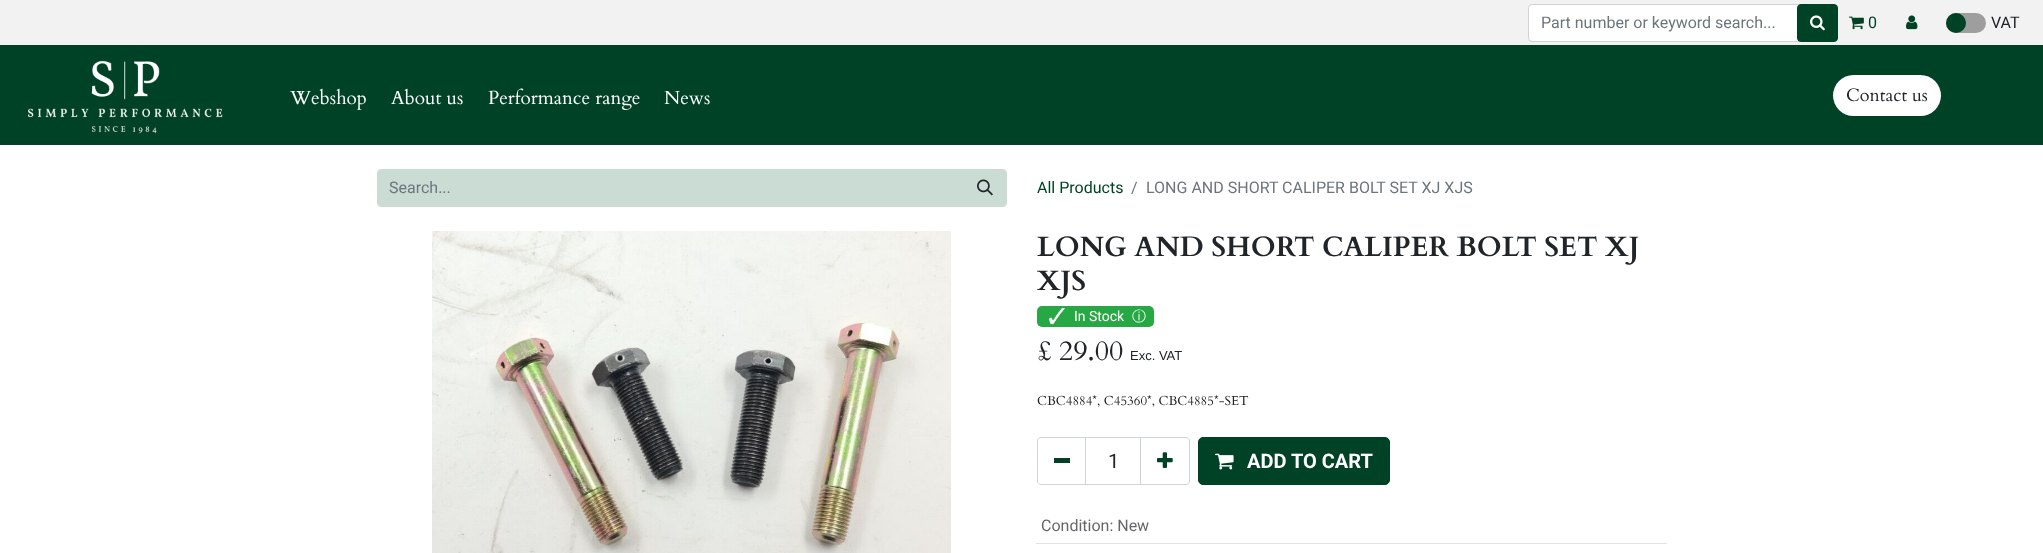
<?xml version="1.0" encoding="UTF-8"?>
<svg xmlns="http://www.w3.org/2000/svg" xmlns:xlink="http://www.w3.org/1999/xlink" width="2043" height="553">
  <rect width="100%" height="100%" fill="#ffffff" />
  <rect width="2043" height="45" fill="#f2f2f2" />
  <rect x="1528.5" y="4.5" width="279" height="37" rx="3.5" fill="#ffffff" stroke="#ced4da" />
  <rect x="1797.5" y="4.5" width="40" height="37" rx="3.5" fill="#004225" stroke="#004225" />
  <image x="1810" y="15" width="15" height="16" xlink:href="image1.png" />
  <image x="1849" y="16" width="15" height="14" xlink:href="image2.png" />
  <image x="1906" y="15" width="12" height="15" xlink:href="image3.png" />
  <rect x="1946" y="13" width="40" height="20" rx="10" fill="#9e9e9e" />
  <circle cx="1956" cy="23" r="10" fill="#004225" />
  <rect y="45" width="2043" height="100" fill="#004225" />
  <image x="27" y="60" width="196" height="74" xlink:href="image4.png" />
  <rect x="1833" y="75" width="108" height="41" rx="20.5" fill="#ffffff" />
  <path d="M 381 169 h 584 v 38 h -584 c -2 0 -4 -2 -4 -4 v -30 c 0 -2 2 -4 4 -4 z" fill="#cbdcd5" />
  <path d="M 964.5 169.5 h 38.5 c 2 0 3.5 1.5 3.5 3.5 v 30 c 0 2 -1.5 3.5 -3.5 3.5 h -38.5 z" fill="#cbdcd5" stroke="#cbdcd5" />
  <image x="977" y="179" width="16" height="17" xlink:href="image5.png" />
  <image x="432" y="231" width="519" height="322" xlink:href="image6.png" />
  <rect x="1037" y="306" width="117" height="21" rx="5" fill="#28a745" />
  <image x="1049" y="307" width="16" height="18" xlink:href="image7.png" />
  <rect x="1085.5" y="437.5" width="55" height="47" fill="none" stroke="#ced4da" />
  <path d="M 1041 437.5 h 44.5 v 47 h -44.5 c -2 0 -3.5 -1.5 -3.5 -3.5 v -40 c 0 -2 1.5 -3.5 3.5 -3.5 z" fill="none" stroke="#ced4da" />
  <rect x="1054" y="458" width="16" height="5" fill="#004225" />
  <path d="M 1140.5 437.5 h 45.5 c 2 0 3.5 1.5 3.5 3.5 v 40 c 0 2 -1.5 3.5 -3.5 3.5 h -45.5 z" fill="none" stroke="#ced4da" />
  <image x="1157" y="452" width="16" height="16" xlink:href="image8.png" />
  <rect x="1198.5" y="437.5" width="191" height="47" rx="4.5" fill="#004225" stroke="#004225" />
  <image x="1215" y="453" width="19" height="17" xlink:href="image9.png" />
  <rect x="1036" y="543" width="631" height="1" fill="#dee2e6" />
  <text x="1541" y="28" style="font-family: Roboto; font-size: 16px; fill: #6c757d">Part number or keyword search...</text>
  <text x="1868" y="28" style="font-family: Roboto; font-size: 16px; fill: #004225">0</text>
  <text x="1991" y="28" style="font-family: Roboto; font-size: 16px; fill: #212529">VAT</text>
  <text x="290" y="104" style="font-family: Cardo; font-size: 19px; fill: #ffffff">Webshop</text>
  <text x="391" y="104" style="font-family: Cardo; font-size: 19px; fill: #ffffff">About us</text>
  <text x="488" y="104" style="font-family: Cardo; font-size: 19px; fill: #ffffff">Performance range</text>
  <text x="664" y="104" style="font-family: Cardo; font-size: 19px; fill: #ffffff">News</text>
  <text x="1846" y="101" style="font-family: Cardo; font-size: 18px; fill: #212529">Contact us</text>
  <text x="389" y="193" style="font-family: Roboto; font-size: 16px; fill: #6c757d">Search...</text>
  <text x="1037" y="193" style="font-family: Roboto; font-size: 16px; fill: #004225">All Products</text>
  <text x="1131" y="193" style="font-family: Roboto; font-size: 16px; fill: #6c757d">/</text>
  <text x="1146" y="193" style="font-family: Roboto; font-size: 16px; fill: #6c757d">LONG AND SHORT CALIPER BOLT SET XJ XJS</text>
  <text x="1037" y="256" style="font-family: Cardo; font-size: 28px; font-weight: bold; fill: #212529">LONG AND SHORT CALIPER BOLT SET XJ</text>
  <text x="1037" y="290" style="font-family: Cardo; font-size: 28px; font-weight: bold; fill: #212529">XJS</text>
  <text x="1074" y="321" style="font-family: Roboto; font-size: 14px; fill: #ffffff">In Stock</text>
  <text x="1132" y="321" style="font-family: WenQuanYi Zen Hei; font-size: 14px; font-weight: 500; fill: #ffffff">ⓘ</text>
  <text x="1037" y="360" style="font-family: Cardo; font-size: 28px; fill: #212529">£ 29.00</text>
  <text x="1130" y="360" style="font-family: Liberation Sans; font-size: 13px; fill: #212529">Exc. VAT</text>
  <text x="1037" y="405" style="font-family: Cardo; font-size: 13px; fill: #212529">CBC4884*, C45360*, CBC4885*-SET</text>
  <text x="1108" y="468" style="font-family: Roboto; font-size: 20px; fill: #212529">1</text>
  <text x="1247" y="468" style="font-family: Roboto; font-size: 20px; font-weight: bold; fill: #ffffff">ADD TO CART</text>
  <text x="1041" y="531" style="font-family: Roboto; font-size: 16px; fill: #646669">Condition: New</text>
</svg>
